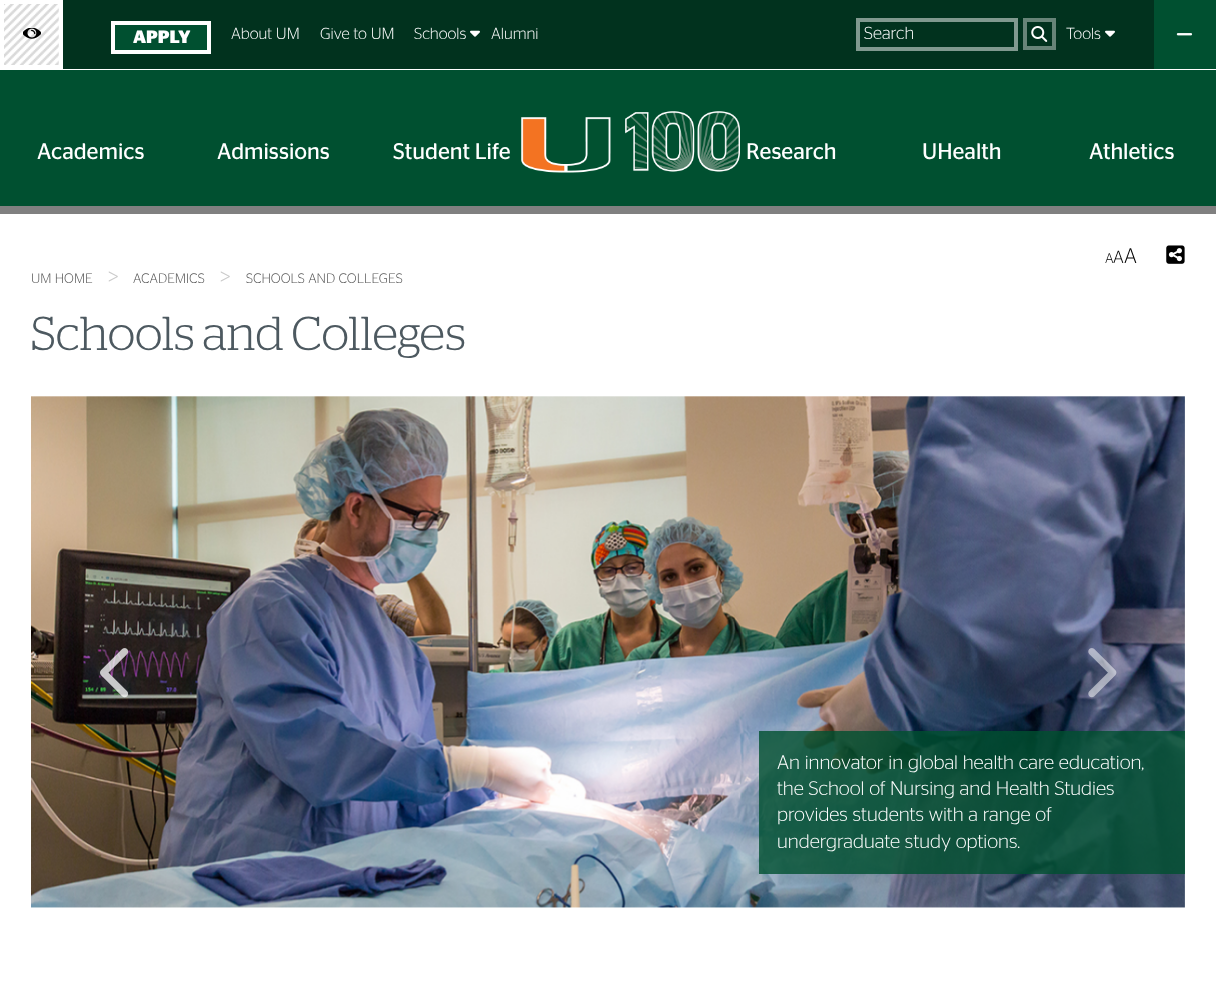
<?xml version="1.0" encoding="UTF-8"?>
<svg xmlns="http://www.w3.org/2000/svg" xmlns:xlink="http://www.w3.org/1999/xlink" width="1216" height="982">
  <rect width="100%" height="100%" fill="#ffffff" />
  <rect y="206" width="1216" height="8" fill="#808080" />
  <rect x="63" width="1091" height="69" fill="#01321e" />
  <image x="4" y="4" width="55" height="61" xlink:href="image1.png" />
  <image x="23" y="28" width="18" height="11" xlink:href="image2.png" />
  <rect x="113" y="23" width="96" height="29" fill="#005030" stroke="#ffffff" stroke-width="4" />
  <image x="470" y="30" width="10" height="7" xlink:href="image3.png" />
  <rect x="858" y="20" width="158" height="29" fill="none" stroke="#80998f" stroke-width="4" />
  <rect x="1025" y="20" width="29" height="28" fill="none" stroke="#678478" stroke-width="4" />
  <image x="1031" y="26" width="17" height="16" xlink:href="image4.png" />
  <image x="1105" y="30" width="10" height="7" xlink:href="image3.png" />
  <rect x="1156" y="2" width="58" height="65" fill="#005030" stroke="#005030" stroke-width="4" />
  <image x="1176" y="33" width="17" height="3" xlink:href="image5.png" />
  <rect y="70" width="1216" height="136" fill="#005030" />
  <image x="521" y="111" width="219" height="62" xlink:href="image6.png" />
  <image x="1166" y="245" width="19" height="19" xlink:href="image7.png" />
  <image x="31" y="396" width="1154" height="512" xlink:href="image10.png" />
  <image x="100" y="648" width="29" height="50" xlink:href="image8.png" />
  <image x="1088" y="648" width="29" height="50" xlink:href="image9.png" />
  <rect x="759" y="731" width="426" height="143" fill="#005030" fill-opacity="0.8" />
  <text x="133" y="43" style="font-family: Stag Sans; font-size: 18px; font-weight: bold; fill: #ffffff">APPLY</text>
  <text x="231" y="39" style="font-family: Stag Sans; font-size: 16px; font-weight: 300; fill: #ffffff">About UM</text>
  <text x="320" y="39" style="font-family: Stag Sans; font-size: 16px; font-weight: 300; fill: #ffffff">Give to UM</text>
  <text x="414" y="39" style="font-family: Stag Sans; font-size: 16px; font-weight: 300; fill: #ffffff">Schools</text>
  <text x="491" y="39" style="font-family: Stag Sans; font-size: 16px; font-weight: 300; fill: #ffffff">Alumni</text>
  <text x="864" y="39" style="font-family: Stag Sans; font-size: 17.5px; font-weight: 300; fill: #ffffff">Search</text>
  <text x="1066" y="39" style="font-family: Stag Sans; font-size: 16px; font-weight: 300; fill: #ffffff">Tools</text>
  <text x="37" y="159" style="font-family: Stag Sans; font-size: 22.5px; fill: #ffffff">Academics</text>
  <text x="217" y="159" style="font-family: Stag Sans; font-size: 22.5px; fill: #ffffff">Admissions</text>
  <text x="393" y="159" style="font-family: Stag Sans; font-size: 22.5px; fill: #ffffff">Student Life</text>
  <text x="746" y="159" style="font-family: Stag Sans; font-size: 22.5px; fill: #ffffff">Research</text>
  <text x="922" y="159" style="font-family: Stag Sans; font-size: 22.5px; fill: #ffffff">UHealth</text>
  <text x="1089" y="159" style="font-family: Stag Sans; font-size: 22.5px; fill: #ffffff">Athletics</text>
  <text x="1105" y="263" style="font-family: Stag Sans; font-size: 14px; font-weight: 300; fill: #000000">A</text>
  <text x="1113" y="263" style="font-family: Stag Sans; font-size: 17.5px; font-weight: 300; fill: #000000">A</text>
  <text x="1124" y="263" style="font-family: Stag Sans; font-size: 21px; font-weight: 300; fill: #000000">A</text>
  <text x="31" y="283" style="font-family: Stag Sans; font-size: 13.75px; font-weight: 300; fill: #545454">UM HOME</text>
  <text x="108" y="284" style="font-family: Stag Sans; font-size: 23px; font-weight: 300; fill: #cacaca">&gt;</text>
  <text x="133" y="283" style="font-family: Stag Sans; font-size: 13.75px; font-weight: 300; fill: #545454">ACADEMICS</text>
  <text x="220" y="284" style="font-family: Stag Sans; font-size: 23px; font-weight: 300; fill: #cacaca">&gt;</text>
  <text x="246" y="283" style="font-family: Stag Sans; font-size: 13.75px; font-weight: 300; fill: #545454">SCHOOLS AND COLLEGES</text>
  <text x="31" y="350" style="font-family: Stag; font-size: 47.5px; font-weight: 300; fill: #4d5960">Schools and Colleges</text>
  <text x="777" y="769" style="font-family: Stag Sans; font-size: 19.7px; font-weight: 300; fill: #ffffff">An innovator in global health care education,</text>
  <text x="777" y="795" style="font-family: Stag Sans; font-size: 19.7px; font-weight: 300; fill: #ffffff">the School of Nursing and Health Studies</text>
  <text x="777" y="821" style="font-family: Stag Sans; font-size: 19.7px; font-weight: 300; fill: #ffffff">provides students with a range of</text>
  <text x="777" y="848" style="font-family: Stag Sans; font-size: 19.7px; font-weight: 300; fill: #ffffff">undergraduate study options.</text>
</svg>
